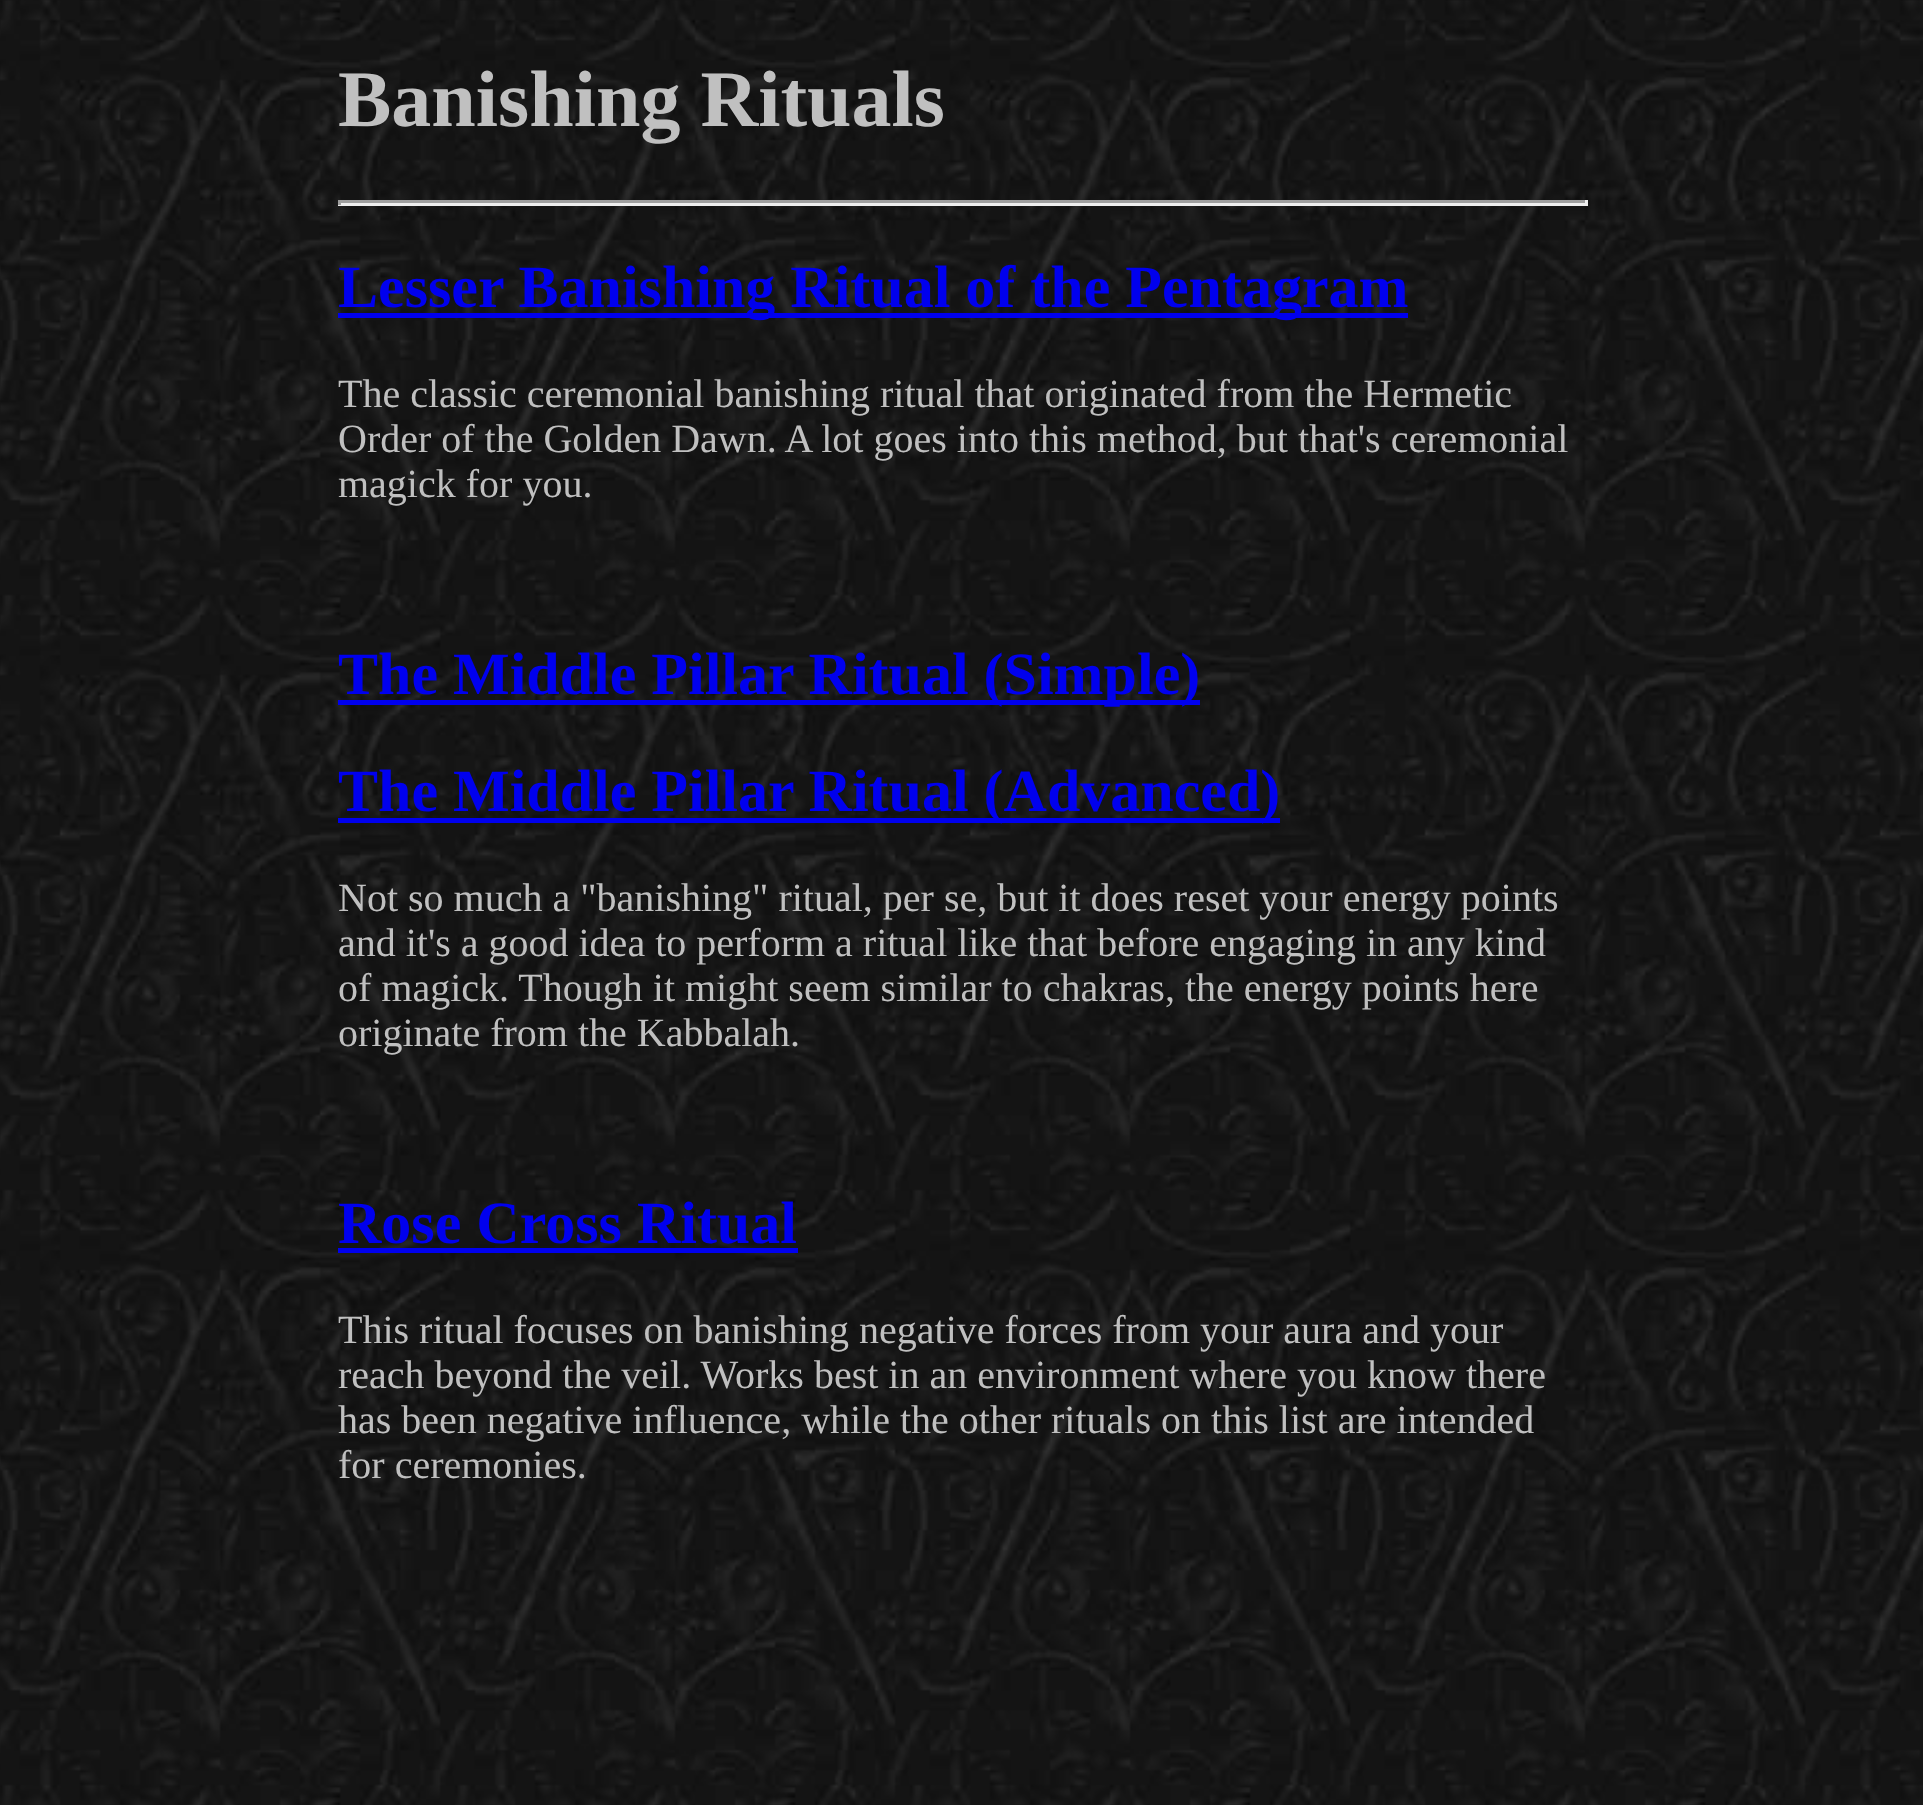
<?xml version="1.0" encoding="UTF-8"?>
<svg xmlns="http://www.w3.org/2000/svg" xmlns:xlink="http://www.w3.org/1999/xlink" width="1923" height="1805">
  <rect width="100%" height="100%" fill="#ffffff" />
  <image x="0" y="0" width="1923" height="1805" xlink:href="image1.png" />
  <rect x="338" y="200" width="1250" height="3" fill="#9f9f9f" />
  <rect x="1585" y="200" width="3" height="5" fill="#eeeeee" />
  <rect x="338" y="203" width="1250" height="3" fill="#eeeeee" />
  <rect x="338" y="200" width="3" height="5" fill="#9f9f9f" />
  <rect x="338" y="313" width="1070" height="5" fill="#0000ee" />
  <rect x="338" y="700" width="862" height="5" fill="#0000ee" />
  <rect x="338" y="818" width="942" height="5" fill="#0000ee" />
  <rect x="338" y="1248" width="460" height="5" fill="#0000ee" />
  <text x="338" y="126" style="font-family: Liberation Serif; font-size: 80px; font-weight: bold; fill: #c0c0c0">Banishing Rituals</text>
  <text x="338" y="307" style="font-family: Liberation Serif; font-size: 60px; font-weight: bold; fill: #0000ee">Lesser Banishing Ritual of the Pentagram</text>
  <text x="338" y="407" style="font-family: Liberation Serif; font-size: 40px; fill: #c0c0c0">The classic ceremonial banishing ritual that originated from the Hermetic</text>
  <text x="338" y="452" style="font-family: Liberation Serif; font-size: 40px; fill: #c0c0c0">Order of the Golden Dawn. A lot goes into this method, but that's ceremonial</text>
  <text x="338" y="497" style="font-family: Liberation Serif; font-size: 40px; fill: #c0c0c0">magick for you.</text>
  <text x="338" y="694" style="font-family: Liberation Serif; font-size: 60px; font-weight: bold; fill: #0000ee">The Middle Pillar Ritual (Simple)</text>
  <text x="338" y="811" style="font-family: Liberation Serif; font-size: 60px; font-weight: bold; fill: #0000ee">The Middle Pillar Ritual (Advanced)</text>
  <text x="338" y="911" style="font-family: Liberation Serif; font-size: 40px; fill: #c0c0c0">Not so much a "banishing" ritual, per se, but it does reset your energy points</text>
  <text x="338" y="956" style="font-family: Liberation Serif; font-size: 40px; fill: #c0c0c0">and it's a good idea to perform a ritual like that before engaging in any kind</text>
  <text x="338" y="1001" style="font-family: Liberation Serif; font-size: 40px; fill: #c0c0c0">of magick. Though it might seem similar to chakras, the energy points here</text>
  <text x="338" y="1046" style="font-family: Liberation Serif; font-size: 40px; fill: #c0c0c0">originate from the Kabbalah.</text>
  <text x="338" y="1243" style="font-family: Liberation Serif; font-size: 60px; font-weight: bold; fill: #0000ee">Rose Cross Ritual</text>
  <text x="338" y="1343" style="font-family: Liberation Serif; font-size: 40px; fill: #c0c0c0">This ritual focuses on banishing negative forces from your aura and your</text>
  <text x="338" y="1388" style="font-family: Liberation Serif; font-size: 40px; fill: #c0c0c0">reach beyond the veil. Works best in an environment where you know there</text>
  <text x="338" y="1433" style="font-family: Liberation Serif; font-size: 40px; fill: #c0c0c0">has been negative influence, while the other rituals on this list are intended</text>
  <text x="338" y="1478" style="font-family: Liberation Serif; font-size: 40px; fill: #c0c0c0">for ceremonies.</text>
</svg>
